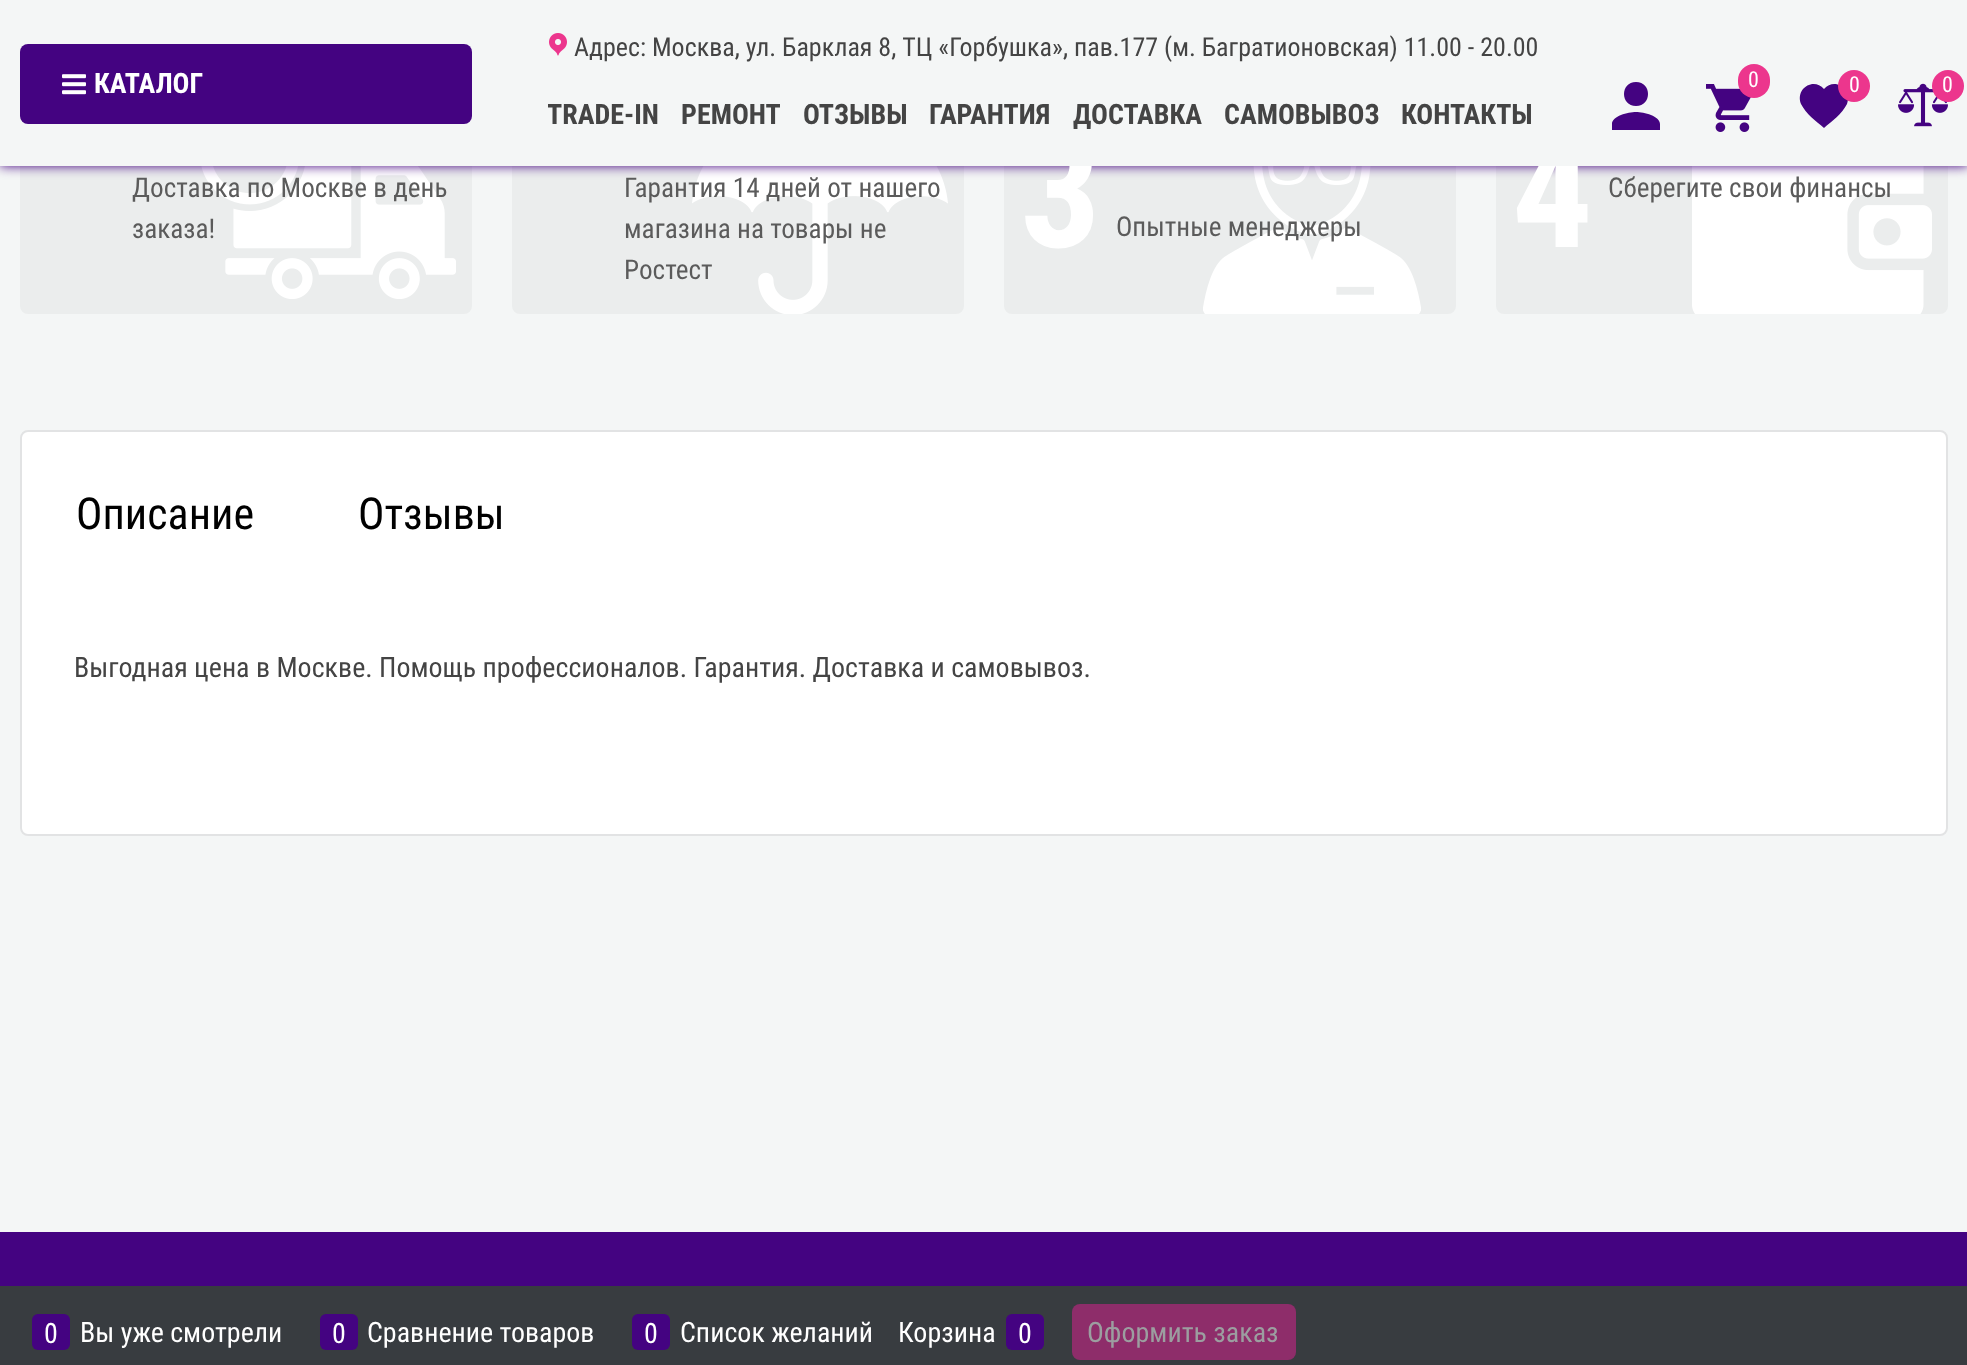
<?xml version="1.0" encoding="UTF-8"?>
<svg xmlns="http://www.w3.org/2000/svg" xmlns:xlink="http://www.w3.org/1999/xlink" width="1967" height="1365">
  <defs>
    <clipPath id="clip1"><rect x="548" y="82" width="112" height="66" /></clipPath>
  </defs>
  <rect width="100%" height="100%" fill="#f4f6f6" />
  <rect x="20" y="42" width="452" height="272" rx="8" fill="#ebeded" />
  <image x="201" y="166" width="255" height="133" xlink:href="image5.png" />
  <rect x="512" y="42" width="452" height="272" rx="8" fill="#ebeded" />
  <image x="692" y="166" width="256" height="148" xlink:href="image6.png" />
  <rect x="1004" y="42" width="452" height="272" rx="8" fill="#ebeded" />
  <image x="1203" y="166" width="218" height="148" xlink:href="image7.png" />
  <rect x="1496" y="42" width="452" height="272" rx="8" fill="#ebeded" />
  <image x="1692" y="166" width="240" height="148" xlink:href="image8.png" />
  <rect width="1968" height="166" fill="#440381" filter="blur(6px)" />
  <rect x="21" y="431" width="1926" height="404" rx="7" fill="#ffffff" stroke="#e2e3e4" stroke-width="2" />
  <rect y="1232" width="1967" height="54" fill="#440381" />
  <rect y="1286" width="1967" height="79" fill="#383c40" />
  <rect x="32" y="1314" width="38" height="36" rx="6" fill="#440381" />
  <rect x="320" y="1314" width="38" height="36" rx="6" fill="#440381" />
  <rect x="632" y="1314" width="38" height="36" rx="6" fill="#440381" />
  <rect x="1006" y="1314" width="38" height="36" rx="6" fill="#440381" />
  <rect x="1072" y="1304" width="224" height="56" rx="8" fill="#8e2d6a" />
  <text x="132" y="197" style="font-family: Roboto Condensed; font-size: 27.25px; fill: #5b5b5b">Доставка по Москве в день</text>
  <text x="132" y="238" style="font-family: Roboto Condensed; font-size: 27.25px; fill: #5b5b5b">заказа!</text>
  <text x="624" y="197" style="font-family: Roboto Condensed; font-size: 27.25px; fill: #5b5b5b">Гарантия 14 дней от нашего</text>
  <text x="624" y="238" style="font-family: Roboto Condensed; font-size: 27.25px; fill: #5b5b5b">магазина на товары не</text>
  <text x="624" y="279" style="font-family: Roboto Condensed; font-size: 27.25px; fill: #5b5b5b">Ростест</text>
  <text x="1020" y="247" style="font-family: Roboto Condensed; font-size: 160px; font-weight: bold; fill: #ffffff">3</text>
  <text x="1116" y="236" style="font-family: Roboto Condensed; font-size: 27.25px; fill: #5b5b5b">Опытные менеджеры</text>
  <text x="1512" y="247" style="font-family: Roboto Condensed; font-size: 160px; font-weight: bold; fill: #ffffff">4</text>
  <rect width="1967" height="166" fill="#f4f6f6" />
  <rect x="20" y="44" width="452" height="80" rx="8" fill="#440381" />
  <text x="94" y="93" style="font-family: Roboto Condensed; font-size: 28px; font-weight: bold; fill: #ffffff">КАТАЛОГ</text>
  <image x="62" y="74" width="24" height="21" xlink:href="image1.png" />
  <text x="1401" y="124" style="font-family: Roboto Condensed; font-size: 28px; font-weight: bold; fill: #444444">КОНТАКТЫ</text>
  <text x="1224" y="124" style="font-family: Roboto Condensed; font-size: 28px; font-weight: bold; fill: #444444">САМОВЫВОЗ</text>
  <text x="1073" y="124" style="font-family: Roboto Condensed; font-size: 28px; font-weight: bold; fill: #444444">ДОСТАВКА</text>
  <text x="929" y="124" style="font-family: Roboto Condensed; font-size: 28px; font-weight: bold; fill: #444444">ГАРАНТИЯ</text>
  <text x="803" y="124" style="font-family: Roboto Condensed; font-size: 28px; font-weight: bold; fill: #444444">ОТЗЫВЫ</text>
  <text x="681" y="124" style="font-family: Roboto Condensed; font-size: 28px; font-weight: bold; fill: #444444">РЕМОНТ</text>
  <g clip-path="url(#clip1)">
    <text x="547" y="124" style="font-family: Roboto Condensed; font-size: 28px; font-weight: bold; fill: #444444">TRADE-IN</text>
  </g>
  <image x="1898" y="83" width="50" height="44" xlink:href="image4.png" />
  <circle cx="1948" cy="86" r="16" fill="#ec368d" />
  <text x="1942" y="92" style="font-family: Roboto Condensed; font-size: 22px; fill: #ffffff">0</text>
  <path d="M 1824 128 c -8 -7 -18 -14 -23 -24 c -6 -16 13 -27 23 -15 c 10 -12 29 -1 23 15 c -5 10 -15 17 -23 24 z" fill="#440381" />
  <circle cx="1854" cy="86" r="16" fill="#ec368d" />
  <text x="1849" y="92" style="font-family: Roboto Condensed; font-size: 22px; fill: #ffffff">0</text>
  <image x="1706" y="84" width="45" height="48" xlink:href="image3.png" />
  <rect x="1738" y="64" width="32" height="34" rx="16" fill="#ec368d" />
  <text x="1748" y="87" style="font-family: Roboto Condensed; font-size: 22px; fill: #ffffff">0</text>
  <path d="M 1636 106 c 16 0 16 -24 0 -24 c -16 0 -16 24 0 24 z m 0 6 c -8 0 -24 4 -24 12 v 6 h 48 v -6 c 0 -8 -16 -12 -24 -12 z" fill="#440381" />
  <image x="549" y="33" width="18" height="23" xlink:href="image2.png" />
  <text x="574" y="56" style="font-family: Roboto Condensed; font-size: 26px; fill: #444444">Адрес: Москва, ул. Барклая 8, ТЦ «Горбушка», пав.177 (м. Багратионовская) 11.00 - 20.00</text>
  <text x="1608" y="197" style="font-family: Roboto Condensed; font-size: 27.25px; fill: #5b5b5b">Сберегите свои финансы</text>
  <text x="76" y="529" style="font-family: Roboto Condensed; font-size: 44px; fill: #000000">Описание</text>
  <text x="358" y="529" style="font-family: Roboto Condensed; font-size: 44px; fill: #000000">Отзывы</text>
  <text x="74" y="677" style="font-family: Roboto Condensed; font-size: 28px; fill: #444444">Выгодная цена в Москве. Помощь профессионалов. Гарантия. Доставка и самовывоз.</text>
  <text x="44" y="1343" style="font-family: Roboto Condensed; font-size: 28px; fill: #ffffff">0</text>
  <text x="80" y="1342" style="font-family: Roboto Condensed; font-size: 28px; fill: #ffffff">Вы уже смотрели</text>
  <text x="332" y="1343" style="font-family: Roboto Condensed; font-size: 28px; fill: #ffffff">0</text>
  <text x="367" y="1342" style="font-family: Roboto Condensed; font-size: 28px; fill: #ffffff">Сравнение товаров</text>
  <text x="644" y="1343" style="font-family: Roboto Condensed; font-size: 28px; fill: #ffffff">0</text>
  <text x="680" y="1342" style="font-family: Roboto Condensed; font-size: 28px; fill: #ffffff">Список желаний</text>
  <text x="898" y="1342" style="font-family: Roboto Condensed; font-size: 28px; fill: #ffffff">Корзина</text>
  <text x="1018" y="1343" style="font-family: Roboto Condensed; font-size: 28px; fill: #ffffff">0</text>
  <text x="1087" y="1342" style="font-family: Roboto Condensed; font-size: 28px; fill: #9c9ea0">Оформить заказ</text>
</svg>
